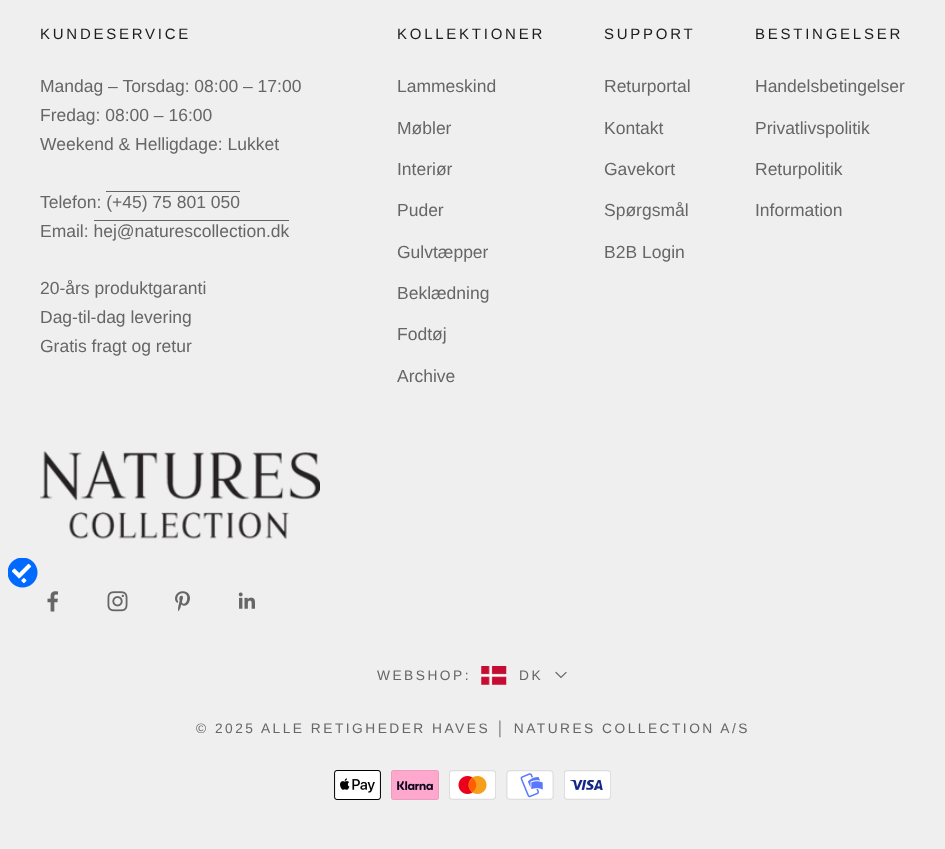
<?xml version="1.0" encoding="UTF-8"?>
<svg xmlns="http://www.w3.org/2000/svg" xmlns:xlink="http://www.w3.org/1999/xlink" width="945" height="849">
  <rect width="100%" height="100%" fill="#efefef" />
  <image x="8" y="558" width="30" height="30" xlink:href="image1.png" />
  <rect x="106" y="191" width="134" height="1" fill="#666666" />
  <rect x="94" y="220" width="195" height="1" fill="#666666" />
  <image x="40" y="451" width="280" height="88" xlink:href="image2.png" />
  <image x="47" y="591" width="11" height="21" xlink:href="image3.png" />
  <image x="107" y="591" width="21" height="21" xlink:href="image4.png" />
  <image x="175" y="591" width="15" height="21" xlink:href="image5.png" />
  <image x="238" y="592" width="17" height="17" xlink:href="image6.png" />
  <image x="481" y="666" width="26" height="19" xlink:href="image7.png" />
  <path d="M 556 672.5 l 5 5 l 5 -5" fill="none" stroke="#666666" stroke-width="1.2" stroke-linecap="square" />
  <image x="334" y="770" width="47" height="30" xlink:href="image8.png" />
  <image x="391" y="770" width="48" height="30" xlink:href="image9.png" />
  <image x="449" y="770" width="47" height="30" xlink:href="image10.png" />
  <image x="506" y="770" width="48" height="30" xlink:href="image11.png" />
  <image x="564" y="770" width="47" height="30" xlink:href="image12.png" />
  <text x="40" y="39" style="font-family: Liberation Sans; font-size: 15px; letter-spacing: 2.75px; fill: #1c1c1c">KUNDESERVICE</text>
  <text x="40" y="92" style="font-family: Liberation Sans; font-size: 17.5px; fill: #666666">Mandag – Torsdag: 08:00 – 17:00</text>
  <text x="40" y="121" style="font-family: Liberation Sans; font-size: 17.5px; fill: #666666">Fredag: 08:00 – 16:00</text>
  <text x="40" y="150" style="font-family: Liberation Sans; font-size: 17.5px; fill: #666666">Weekend &amp; Helligdage: Lukket</text>
  <text x="40" y="208" style="font-family: Liberation Sans; font-size: 17.5px; fill: #666666">Telefon: (+45) 75 801 050</text>
  <text x="40" y="237" style="font-family: Liberation Sans; font-size: 17.5px; fill: #666666">Email: hej@naturescollection.dk</text>
  <text x="40" y="294" style="font-family: Liberation Sans; font-size: 17.5px; fill: #666666">20-års produktgaranti</text>
  <text x="40" y="323" style="font-family: Liberation Sans; font-size: 17.5px; fill: #666666">Dag-til-dag levering</text>
  <text x="40" y="352" style="font-family: Liberation Sans; font-size: 17.5px; fill: #666666">Gratis fragt og retur</text>
  <text x="397" y="39" style="font-family: Liberation Sans; font-size: 15px; letter-spacing: 2.75px; fill: #1c1c1c">KOLLEKTIONER</text>
  <text x="397" y="92" style="font-family: Liberation Sans; font-size: 17.5px; fill: #666666">Lammeskind</text>
  <text x="397" y="134" style="font-family: Liberation Sans; font-size: 17.5px; fill: #666666">Møbler</text>
  <text x="397" y="175" style="font-family: Liberation Sans; font-size: 17.5px; fill: #666666">Interiør</text>
  <text x="397" y="216" style="font-family: Liberation Sans; font-size: 17.5px; fill: #666666">Puder</text>
  <text x="397" y="258" style="font-family: Liberation Sans; font-size: 17.5px; fill: #666666">Gulvtæpper</text>
  <text x="397" y="299" style="font-family: Liberation Sans; font-size: 17.5px; fill: #666666">Beklædning</text>
  <text x="397" y="340" style="font-family: Liberation Sans; font-size: 17.5px; fill: #666666">Fodtøj</text>
  <text x="397" y="382" style="font-family: Liberation Sans; font-size: 17.5px; fill: #666666">Archive</text>
  <text x="604" y="39" style="font-family: Liberation Sans; font-size: 15px; letter-spacing: 2.75px; fill: #1c1c1c">SUPPORT</text>
  <text x="604" y="92" style="font-family: Liberation Sans; font-size: 17.5px; fill: #666666">Returportal</text>
  <text x="604" y="134" style="font-family: Liberation Sans; font-size: 17.5px; fill: #666666">Kontakt</text>
  <text x="604" y="175" style="font-family: Liberation Sans; font-size: 17.5px; fill: #666666">Gavekort</text>
  <text x="604" y="216" style="font-family: Liberation Sans; font-size: 17.5px; fill: #666666">Spørgsmål</text>
  <text x="604" y="258" style="font-family: Liberation Sans; font-size: 17.5px; fill: #666666">B2B Login</text>
  <text x="755" y="39" style="font-family: Liberation Sans; font-size: 15px; letter-spacing: 2.75px; fill: #1c1c1c">BESTINGELSER</text>
  <text x="755" y="92" style="font-family: Liberation Sans; font-size: 17.5px; fill: #666666">Handelsbetingelser</text>
  <text x="755" y="134" style="font-family: Liberation Sans; font-size: 17.5px; fill: #666666">Privatlivspolitik</text>
  <text x="755" y="175" style="font-family: Liberation Sans; font-size: 17.5px; fill: #666666">Returpolitik</text>
  <text x="755" y="216" style="font-family: Liberation Sans; font-size: 17.5px; fill: #666666">Information</text>
  <text x="377" y="680" style="font-family: Liberation Sans; font-size: 13.75px; letter-spacing: 2.48px; fill: #666666">WEBSHOP:</text>
  <text x="519" y="680" style="font-family: Liberation Sans; font-size: 13.75px; letter-spacing: 2.48px; fill: #666666">DK</text>
  <text x="196" y="733" style="font-family: Liberation Sans; font-size: 13.75px; letter-spacing: 2.48px; fill: #666666">© 2025 ALLE RETIGHEDER HAVES │ NATURES COLLECTION A/S</text>
</svg>
